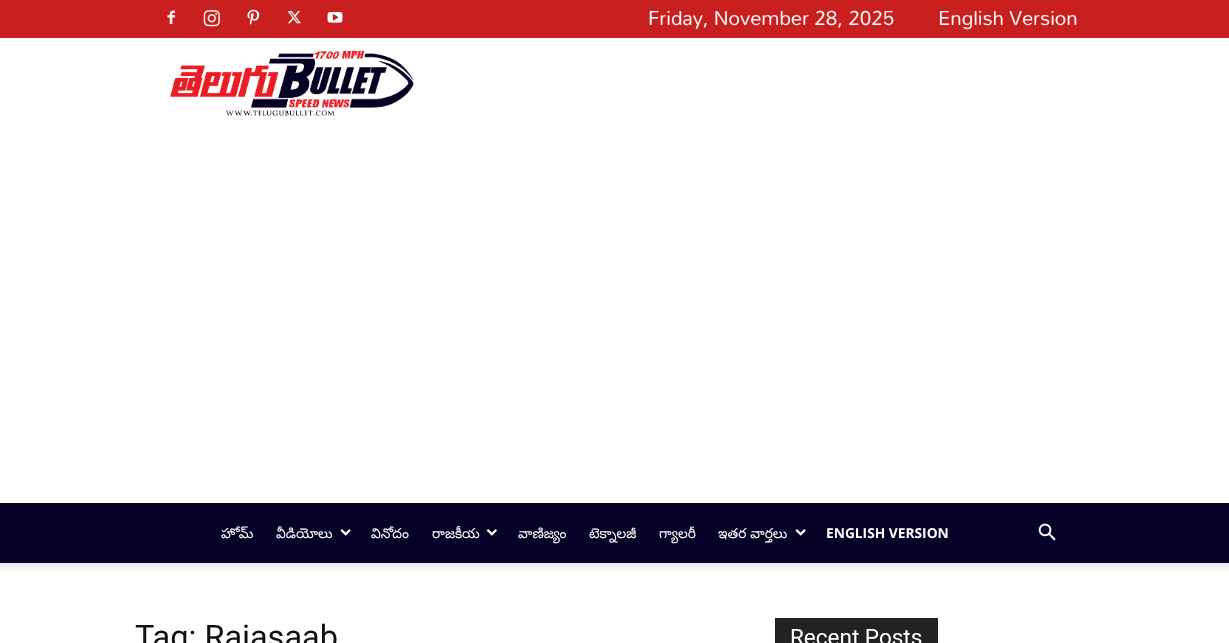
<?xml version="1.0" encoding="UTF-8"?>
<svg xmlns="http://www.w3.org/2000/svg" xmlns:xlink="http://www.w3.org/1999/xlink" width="1229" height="643">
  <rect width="100%" height="100%" fill="#ffffff" />
  <rect width="1229" height="38" fill="#c91f1f" />
  <image x="167" y="10" width="8" height="15" xlink:href="image1.png" />
  <image x="203" y="10" width="17" height="17" xlink:href="image2.png" />
  <image x="247" y="9" width="13" height="16" xlink:href="image3.png" />
  <image x="287" y="11" width="14" height="13" xlink:href="image4.png" />
  <image x="327" y="12" width="16" height="11" xlink:href="image5.png" />
  <image x="170" y="50" width="244" height="66" xlink:href="image6.png" />
  <rect y="503" width="1229" height="60" fill="#070127" />
  <image x="340" y="529" width="11" height="7" xlink:href="image7.png" />
  <image x="486" y="529" width="11" height="7" xlink:href="image8.png" />
  <image x="795" y="529" width="11" height="7" xlink:href="image7.png" />
  <image x="1038" y="523" width="18" height="18" xlink:href="image9.png" />
  <image x="0" y="563" width="1229" height="10" xlink:href="image10.png" />
  <rect x="775" y="618" width="163" height="25" fill="#222222" />
  <text x="648" y="25" style="font-family: Mallanna; font-size: 22.5px; fill: #ffffff">Friday, November 28, 2025</text>
  <text x="938" y="25" style="font-family: Mallanna; font-size: 22.5px; fill: #ffffff">English Version</text>
  <text x="221" y="538" style="font-family: Noto Sans Telugu; font-size: 13.75px; fill: #ffffff">హోమ్</text>
  <text x="276" y="538" style="font-family: Noto Sans Telugu; font-size: 13.75px; fill: #ffffff">వీడియోలు</text>
  <text x="371" y="538" style="font-family: Noto Sans Telugu; font-size: 13.75px; fill: #ffffff">వినోదం</text>
  <text x="432" y="538" style="font-family: Noto Sans Telugu; font-size: 13.75px; fill: #ffffff">రాజకీయ</text>
  <text x="518" y="538" style="font-family: Noto Sans Telugu; font-size: 13.75px; fill: #ffffff">వాణిజ్యం</text>
  <text x="589" y="538" style="font-family: Noto Sans Telugu; font-size: 13.75px; fill: #ffffff">టెక్నాలజీ</text>
  <text x="659" y="538" style="font-family: Noto Sans Telugu; font-size: 13.75px; fill: #ffffff">గ్యాలరీ</text>
  <text x="718" y="538" style="font-family: Noto Sans Telugu; font-size: 13.75px; fill: #ffffff">ఇతర వార్తలు</text>
  <text x="826" y="538" style="font-family: Open Sans; font-size: 13.75px; font-weight: bold; fill: #ffffff">ENGLISH VERSION</text>
  <text x="135" y="648" style="font-family: Roboto; font-size: 32.5px; fill: #111111">Tag: Rajasaab</text>
  <text x="790" y="645" style="font-family: Roboto; font-size: 22.5px; fill: #ffffff">Recent Posts</text>
</svg>
